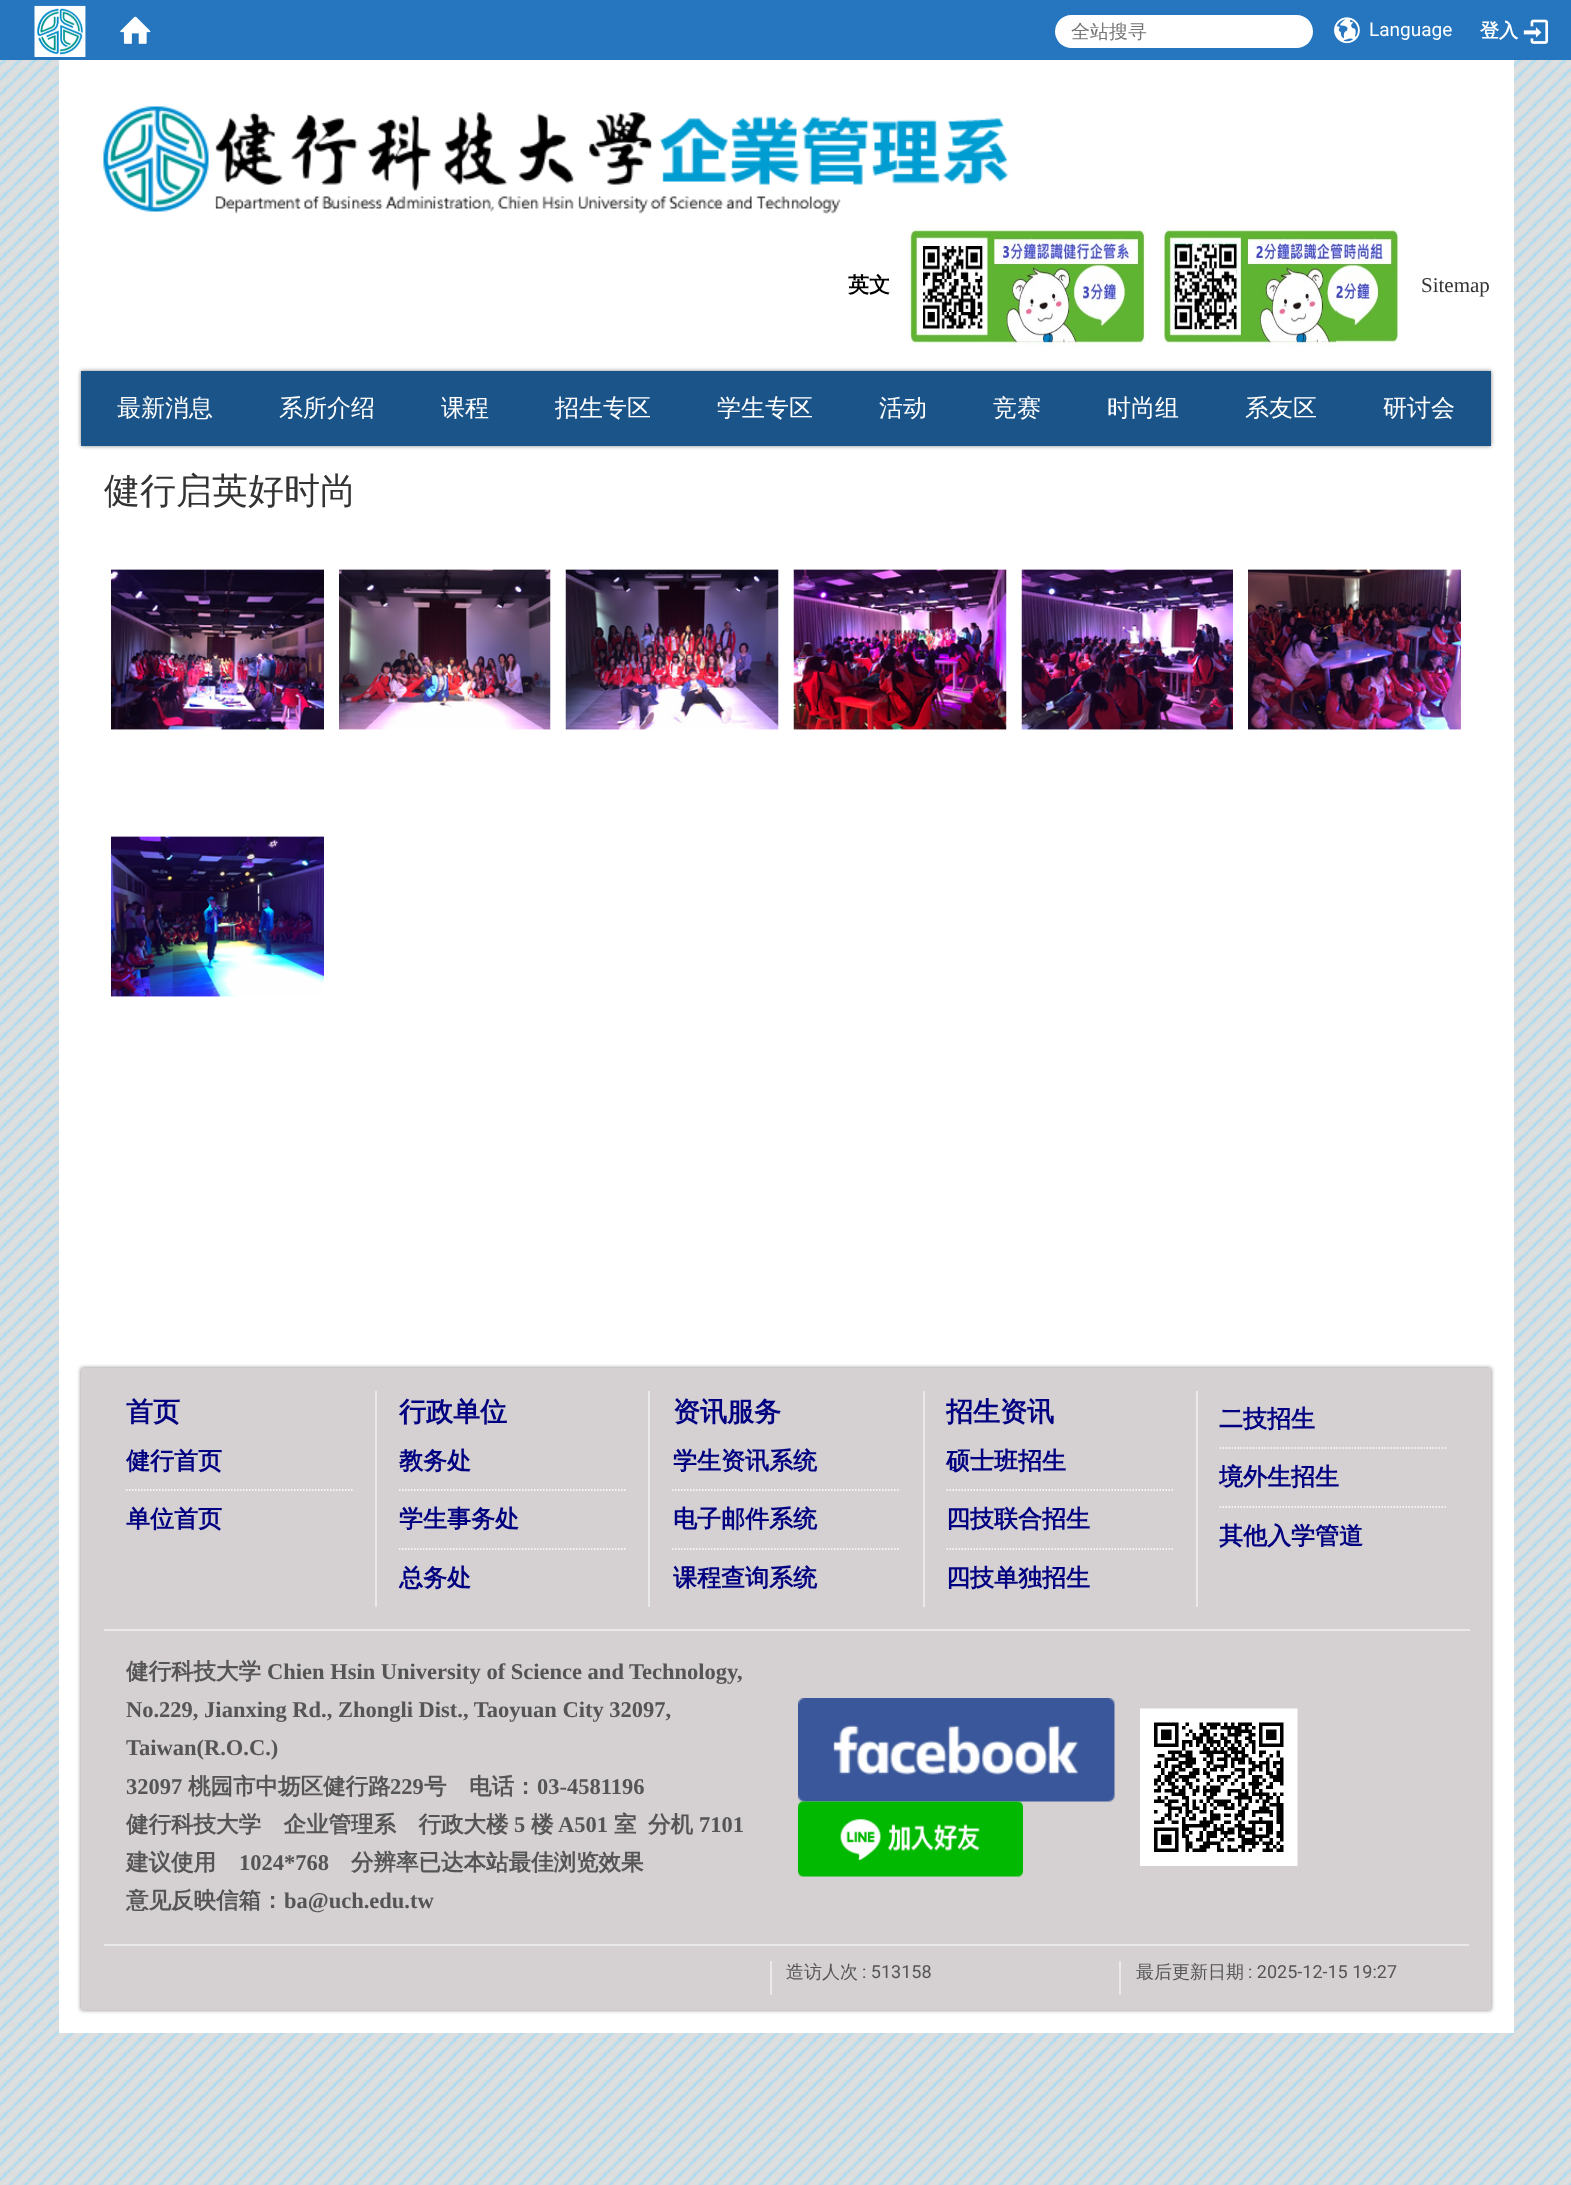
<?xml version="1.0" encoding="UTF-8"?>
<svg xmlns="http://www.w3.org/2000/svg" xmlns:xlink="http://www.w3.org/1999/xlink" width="1571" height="2185">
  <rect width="100%" height="100%" fill="#ffffff" />
  <image x="0" y="60" width="1571" height="2125" xlink:href="image1.png" />
  <rect width="1571" height="60" fill="#2676bf" />
  <image x="34" y="5" width="52" height="52" xlink:href="image2.png" />
  <image x="120" y="16" width="31" height="28" xlink:href="image3.png" />
  <rect x="1055" y="15" width="258" height="33" rx="16.5" fill="#ffffff" />
  <image x="1334" y="17" width="26" height="27" xlink:href="image4.png" />
  <image x="1523" y="19" width="26" height="25" xlink:href="image5.png" />
  <rect x="59" y="60" width="1455" height="1973" fill="#ffffff" />
  <image x="103" y="106" width="906" height="108" xlink:href="image6.png" />
  <image x="908" y="226" width="238" height="121" xlink:href="image7.png" />
  <image x="1161" y="226" width="238" height="121" xlink:href="image8.png" />
  <rect x="81" y="371" width="1410" height="75" fill="#000000" fill-opacity="0.5" filter="blur(2px)" />
  <rect x="81" y="371" width="1410" height="75" fill="#1b5488" />
  <image x="111" y="569" width="213" height="161" xlink:href="image9.png" />
  <image x="339" y="569" width="212" height="161" xlink:href="image10.png" />
  <image x="565" y="569" width="214" height="161" xlink:href="image11.png" />
  <image x="793" y="569" width="214" height="161" xlink:href="image12.png" />
  <image x="1021" y="569" width="212" height="161" xlink:href="image13.png" />
  <image x="1248" y="569" width="213" height="161" xlink:href="image14.png" />
  <image x="111" y="836" width="213" height="161" xlink:href="image15.png" />
  <rect x="81" y="1368" width="1410" height="642" fill="#000000" fill-opacity="0.5" filter="blur(2px)" />
  <rect x="81" y="1368" width="1410" height="642" fill="#d5d0d1" />
  <rect x="104" y="1629" width="1366" height="2" fill="#e9e9e9" />
  <rect x="375" y="1391" width="2" height="216" fill="#e9e9e9" />
  <path d="M 126 1490 h 226.5" fill="none" stroke="#ffffff" stroke-width="1.5" stroke-dasharray="1.5 1.5" />
  <rect x="648" y="1391" width="2" height="216" fill="#e9e9e9" />
  <path d="M 399 1490 h 226.5" fill="none" stroke="#ffffff" stroke-width="1.5" stroke-dasharray="1.5 1.5" />
  <path d="M 399 1549 h 226.5" fill="none" stroke="#ffffff" stroke-width="1.5" stroke-dasharray="1.5 1.5" />
  <rect x="923" y="1391" width="2" height="216" fill="#e9e9e9" />
  <path d="M 672 1490 h 228" fill="none" stroke="#ffffff" stroke-width="1.5" stroke-dasharray="1.5 1.5" />
  <path d="M 672 1549 h 228" fill="none" stroke="#ffffff" stroke-width="1.5" stroke-dasharray="1.5 1.5" />
  <rect x="1196" y="1391" width="2" height="216" fill="#e9e9e9" />
  <path d="M 946.5 1490 h 226.5" fill="none" stroke="#ffffff" stroke-width="1.5" stroke-dasharray="1.5 1.5" />
  <path d="M 946.5 1549 h 226.5" fill="none" stroke="#ffffff" stroke-width="1.5" stroke-dasharray="1.5 1.5" />
  <path d="M 1219.5 1448 h 226.5" fill="none" stroke="#ffffff" stroke-width="1.5" stroke-dasharray="1.5 1.5" />
  <path d="M 1219.5 1507 h 226.5" fill="none" stroke="#ffffff" stroke-width="1.5" stroke-dasharray="1.5 1.5" />
  <image x="798" y="1698" width="317" height="104" xlink:href="image16.png" />
  <image x="798" y="1801" width="225" height="76" xlink:href="image17.png" />
  <image x="1140" y="1708" width="158" height="158" xlink:href="image18.png" />
  <rect x="104" y="1944" width="1365" height="2" fill="#e9e9e9" />
  <rect x="770" y="1961" width="2" height="34" fill="#e9e9e9" />
  <rect x="1119" y="1961" width="2" height="34" fill="#e9e9e9" />
  <text x="1071" y="38" style="font-family: WenQuanYi Zen Hei; font-size: 19px; font-weight: 500; fill: #757575">全站搜寻</text>
  <text x="1369" y="36" style="font-family: Roboto; font-size: 19px; fill: #ffffff">Language</text>
  <text x="1480" y="37" style="font-family: WenQuanYi Zen Hei; font-size: 19px; font-weight: bold; fill: #ffffff">登入</text>
  <text x="848" y="292" style="font-family: WenQuanYi Zen Hei; font-size: 21px; font-weight: bold; fill: #000000">英文</text>
  <text x="1421" y="292" style="font-family: Liberation Serif; font-size: 21px; fill: #333333">Sitemap</text>
  <text x="117" y="416" style="font-family: WenQuanYi Zen Hei; font-size: 24px; font-weight: 500; fill: #ffffff">最新消息</text>
  <text x="279" y="416" style="font-family: WenQuanYi Zen Hei; font-size: 24px; font-weight: 500; fill: #ffffff">系所介绍</text>
  <text x="441" y="416" style="font-family: WenQuanYi Zen Hei; font-size: 24px; font-weight: 500; fill: #ffffff">课程</text>
  <text x="555" y="416" style="font-family: WenQuanYi Zen Hei; font-size: 24px; font-weight: 500; fill: #ffffff">招生专区</text>
  <text x="717" y="416" style="font-family: WenQuanYi Zen Hei; font-size: 24px; font-weight: 500; fill: #ffffff">学生专区</text>
  <text x="879" y="416" style="font-family: WenQuanYi Zen Hei; font-size: 24px; font-weight: 500; fill: #ffffff">活动</text>
  <text x="993" y="416" style="font-family: WenQuanYi Zen Hei; font-size: 24px; font-weight: 500; fill: #ffffff">竞赛</text>
  <text x="1107" y="416" style="font-family: WenQuanYi Zen Hei; font-size: 24px; font-weight: 500; fill: #ffffff">时尚组</text>
  <text x="1245" y="416" style="font-family: WenQuanYi Zen Hei; font-size: 24px; font-weight: 500; fill: #ffffff">系友区</text>
  <text x="1383" y="416" style="font-family: WenQuanYi Zen Hei; font-size: 24px; font-weight: 500; fill: #ffffff">研讨会</text>
  <text x="104" y="503" style="font-family: WenQuanYi Zen Hei; font-size: 36px; font-weight: 500; fill: #333333">健行启英好时尚</text>
  <text x="126" y="1421" style="font-family: WenQuanYi Zen Hei; font-size: 27px; font-weight: bold; fill: #000080">首页</text>
  <text x="126" y="1469" style="font-family: WenQuanYi Zen Hei; font-size: 24px; font-weight: bold; fill: #000080">健行首页</text>
  <text x="126" y="1527" style="font-family: WenQuanYi Zen Hei; font-size: 24px; font-weight: bold; fill: #000080">单位首页</text>
  <text x="399" y="1421" style="font-family: WenQuanYi Zen Hei; font-size: 27px; font-weight: bold; fill: #000080">行政单位</text>
  <text x="399" y="1469" style="font-family: WenQuanYi Zen Hei; font-size: 24px; font-weight: bold; fill: #000080">教务处</text>
  <text x="399" y="1527" style="font-family: WenQuanYi Zen Hei; font-size: 24px; font-weight: bold; fill: #000080">学生事务处</text>
  <text x="399" y="1586" style="font-family: WenQuanYi Zen Hei; font-size: 24px; font-weight: bold; fill: #000080">总务处</text>
  <text x="673" y="1421" style="font-family: WenQuanYi Zen Hei; font-size: 27px; font-weight: bold; fill: #000080">资讯服务</text>
  <text x="673" y="1469" style="font-family: WenQuanYi Zen Hei; font-size: 24px; font-weight: bold; fill: #000080">学生资讯系统</text>
  <text x="673" y="1527" style="font-family: WenQuanYi Zen Hei; font-size: 24px; font-weight: bold; fill: #000080">电子邮件系统</text>
  <text x="673" y="1586" style="font-family: WenQuanYi Zen Hei; font-size: 24px; font-weight: bold; fill: #000080">课程查询系统</text>
  <text x="946" y="1421" style="font-family: WenQuanYi Zen Hei; font-size: 27px; font-weight: bold; fill: #000080">招生资讯</text>
  <text x="946" y="1469" style="font-family: WenQuanYi Zen Hei; font-size: 24px; font-weight: bold; fill: #000080">硕士班招生</text>
  <text x="946" y="1527" style="font-family: WenQuanYi Zen Hei; font-size: 24px; font-weight: bold; fill: #000080">四技联合招生</text>
  <text x="946" y="1586" style="font-family: WenQuanYi Zen Hei; font-size: 24px; font-weight: bold; fill: #000080">四技单独招生</text>
  <text x="1219" y="1427" style="font-family: WenQuanYi Zen Hei; font-size: 24px; font-weight: bold; fill: #000080">二技招生</text>
  <text x="1219" y="1485" style="font-family: WenQuanYi Zen Hei; font-size: 24px; font-weight: bold; fill: #000080">境外生招生</text>
  <text x="1219" y="1544" style="font-family: WenQuanYi Zen Hei; font-size: 24px; font-weight: bold; fill: #000080">其他入学管道</text>
  <text x="126" y="1679" style="font-family: WenQuanYi Zen Hei; font-size: 22.5px; font-weight: bold; fill: #555555">健行科技大学</text>
  <text x="267" y="1679" style="font-family: Liberation Serif; font-size: 22.5px; font-weight: bold; fill: #555555">Chien Hsin University of Science and Technology,</text>
  <text x="126" y="1717" style="font-family: Liberation Serif; font-size: 22.5px; font-weight: bold; fill: #555555">No.229, Jianxing Rd., Zhongli Dist., Taoyuan City 32097,</text>
  <text x="126" y="1755" style="font-family: Liberation Serif; font-size: 22.5px; font-weight: bold; fill: #555555">Taiwan(R.O.C.)</text>
  <text x="126" y="1794" style="font-family: Liberation Serif; font-size: 22.5px; font-weight: bold; fill: #555555">32097</text>
  <text x="188" y="1794" style="font-family: WenQuanYi Zen Hei; font-size: 22.5px; font-weight: bold; fill: #555555">桃园市中坜区健行路</text>
  <text x="390" y="1794" style="font-family: Liberation Serif; font-size: 22.5px; font-weight: bold; fill: #555555">229</text>
  <text x="424" y="1794" style="font-family: WenQuanYi Zen Hei; font-size: 22.5px; font-weight: bold; fill: #555555">号　电话：</text>
  <text x="537" y="1794" style="font-family: Liberation Serif; font-size: 22.5px; font-weight: bold; fill: #555555">03-4581196</text>
  <text x="126" y="1832" style="font-family: WenQuanYi Zen Hei; font-size: 22.5px; font-weight: bold; fill: #555555">健行科技大学　企业管理系　行政大楼</text>
  <text x="514" y="1832" style="font-family: Liberation Serif; font-size: 22.5px; font-weight: bold; fill: #555555">5</text>
  <text x="531" y="1832" style="font-family: WenQuanYi Zen Hei; font-size: 22.5px; font-weight: bold; fill: #555555">楼</text>
  <text x="558" y="1832" style="font-family: Liberation Serif; font-size: 22.5px; font-weight: bold; fill: #555555">A501</text>
  <text x="614" y="1832" style="font-family: WenQuanYi Zen Hei; font-size: 22.5px; font-weight: bold; fill: #555555">室</text>
  <text x="648" y="1832" style="font-family: WenQuanYi Zen Hei; font-size: 22.5px; font-weight: bold; fill: #555555">分机</text>
  <text x="699" y="1832" style="font-family: Liberation Serif; font-size: 22.5px; font-weight: bold; fill: #555555">7101</text>
  <text x="126" y="1870" style="font-family: WenQuanYi Zen Hei; font-size: 22.5px; font-weight: bold; fill: #555555">建议使用</text>
  <text x="239" y="1870" style="font-family: Liberation Serif; font-size: 22.5px; font-weight: bold; fill: #555555">1024*768</text>
  <text x="351" y="1870" style="font-family: WenQuanYi Zen Hei; font-size: 22.5px; font-weight: bold; fill: #555555">分辨率已达本站最佳浏览效果</text>
  <text x="126" y="1908" style="font-family: WenQuanYi Zen Hei; font-size: 22.5px; font-weight: bold; fill: #555555">意见反映信箱：</text>
  <text x="284" y="1908" style="font-family: Liberation Serif; font-size: 22.5px; font-weight: bold; fill: #555555">ba@uch.edu.tw</text>
  <text x="786" y="1978" style="font-family: WenQuanYi Zen Hei; font-size: 18px; font-weight: 500; fill: #555555">造访人次</text>
  <text x="862" y="1978" style="font-family: Roboto; font-size: 18px; fill: #555555">: 513158</text>
  <text x="1136" y="1978" style="font-family: WenQuanYi Zen Hei; font-size: 18px; font-weight: 500; fill: #555555">最后更新日期</text>
  <text x="1248" y="1978" style="font-family: Roboto; font-size: 18px; fill: #555555">: 2025-12-15 19:27</text>
</svg>
